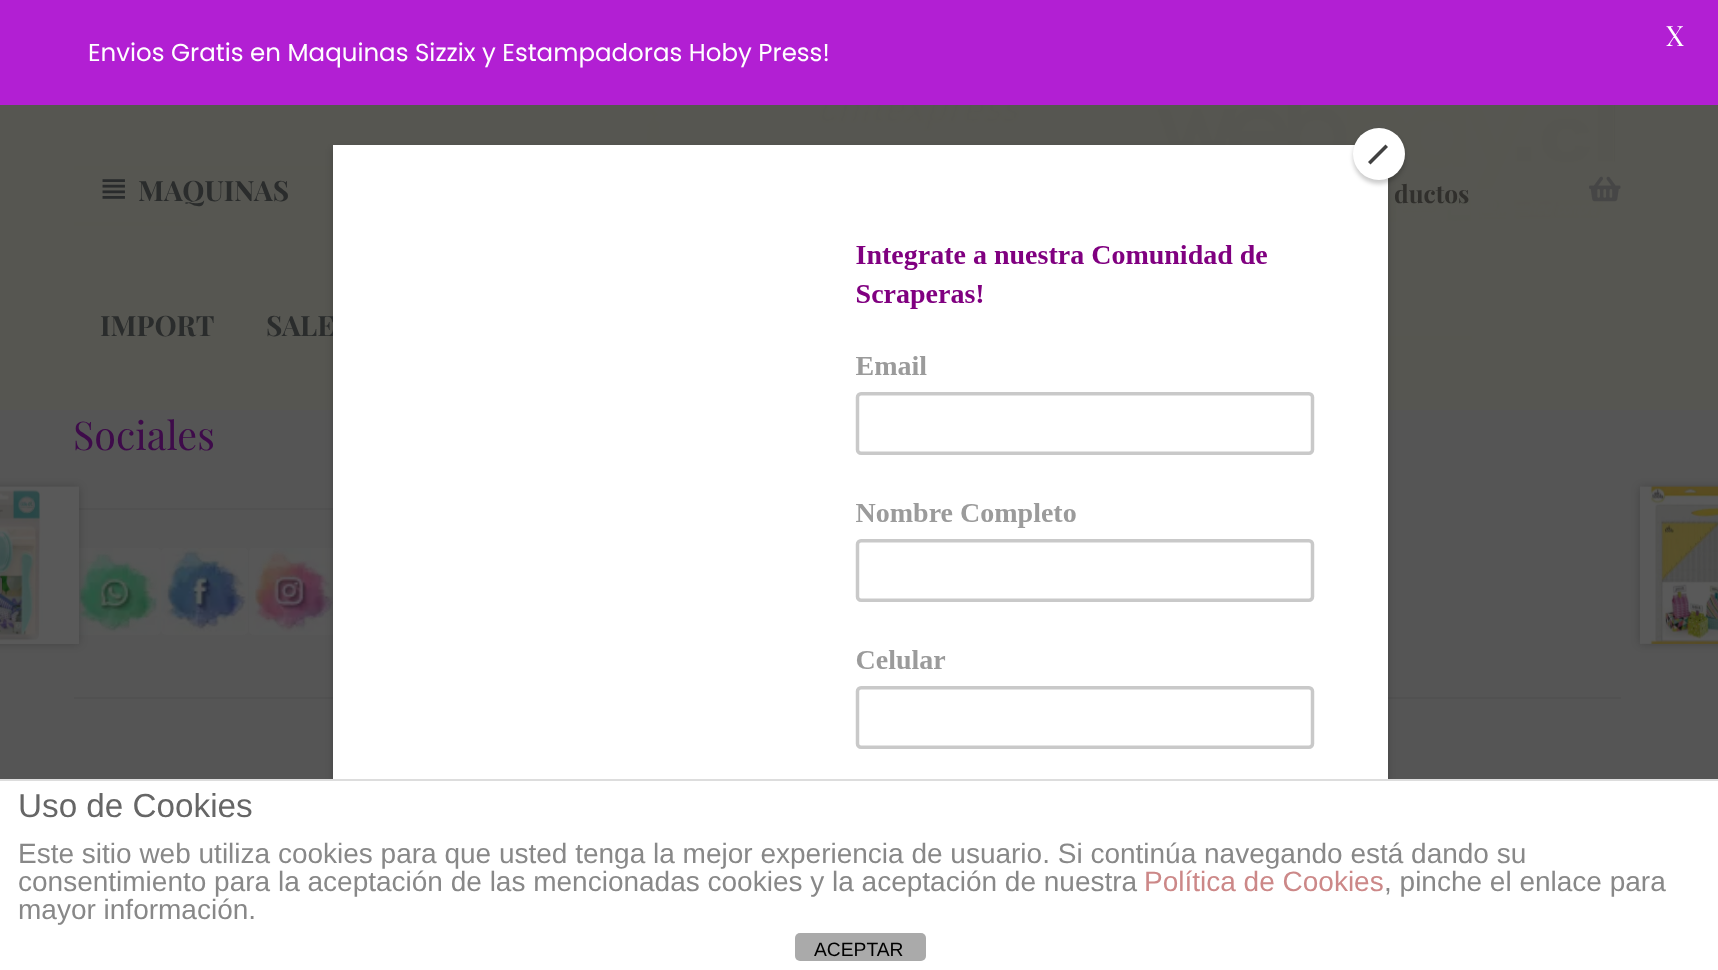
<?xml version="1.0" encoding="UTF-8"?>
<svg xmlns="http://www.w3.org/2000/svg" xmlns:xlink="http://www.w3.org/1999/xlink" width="1718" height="970">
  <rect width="100%" height="100%" fill="#555555" />
  <rect width="1718" height="105" fill="#b21fd3" />
  <image x="611" y="105" width="449" height="40" xlink:href="image4.png" />
  <image x="1155" y="105" width="460" height="118" xlink:href="image5.png" />
  <rect x="1388" y="334" width="84" height="2" fill="#474747" />
  <rect x="1388" y="336" width="84" height="4" fill="#2d2d2d" />
  <rect x="74" y="166" width="259" height="4" fill="#2b2b2b" />
  <rect x="74" y="222" width="124" height="4" fill="#2b2b2b" />
  <rect y="105" width="1718" height="305" fill="#565651" fill-opacity="0.9" />
  <rect x="74" y="105" width="1540" height="235" fill="#565651" fill-opacity="0.9" />
  <rect x="74" y="697" width="1547" height="2" fill="#515151" />
  <rect x="74" y="508" width="259" height="2" fill="#515151" />
  <image x="249" y="548" width="84" height="87" xlink:href="image8.png" />
  <rect x="333" y="149" width="1055" height="721" fill="#000000" fill-opacity="0.2" filter="blur(3.5px)" />
  <image x="102" y="179" width="23" height="20" xlink:href="image2.png" />
  <image x="1589" y="176" width="32" height="26" xlink:href="image3.png" />
  <image x="79" y="548" width="82" height="87" xlink:href="image6.png" />
  <image x="161" y="548" width="87" height="87" xlink:href="image7.png" />
  <rect x="-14" y="487" width="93" height="157" fill="#000000" fill-opacity="0.2" filter="blur(4.5px)" />
  <rect y="641" width="79" height="3" fill="#595959" />
  <image x="0" y="486" width="79" height="155" xlink:href="image9.png" />
  <rect x="1640" y="487" width="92" height="157" fill="#000000" fill-opacity="0.2" filter="blur(4.5px)" />
  <image x="1640" y="485" width="78" height="159" xlink:href="image10.png" />
  <rect y="781" width="1718" height="189" fill="#ffffff" />
  <rect y="779" width="1718" height="2" fill="#dddddd" />
  <rect x="795" y="933" width="131" height="28" rx="5" fill="#aaaaaa" />
  <text x="1666" y="46" style="font-family: Playfair Display; font-size: 28px; fill: #ffffff">X</text>
  <text x="88" y="61" style="font-family: Poppins; font-size: 24.5px; fill: #ffffff">Envios Gratis en Maquinas Sizzix y Estampadoras Hoby Press!</text>
  <text x="138" y="201" style="font-family: Playfair Display; font-size: 28px; font-weight: bold; fill: #2a2c2c">MAQUINAS</text>
  <text x="100" y="336" style="font-family: Playfair Display; font-size: 28px; font-weight: bold; fill: #2a2c2c">IMPORT</text>
  <text x="266" y="336" style="font-family: Playfair Display; font-size: 28px; font-weight: bold; fill: #2a2c2c">SALE</text>
  <image x="333" y="145" width="1055" height="634" xlink:href="image1.png" />
  <rect x="1353" y="131" width="52" height="53" rx="26" fill="#000000" fill-opacity="0.2" filter="blur(2px)" />
  <circle cx="1379" cy="154" r="26" fill="#ffffff" />
  <path d="M 1385.5 144.5 l 2.5 2.5 l -17.5 17.5 l -2.5 -2.5 z" fill="#414141" />
  <text x="1394" y="203" style="font-family: Playfair Display; font-size: 24.5px; font-weight: bold; fill: #302f2c">ductos</text>
  <text x="73" y="450" style="font-family: Playfair Display; font-size: 39.5px; fill: #3e0b4a">Sociales</text>
  <text x="18" y="817" style="font-family: Liberation Sans; font-size: 33.25px; fill: #666666">Uso de Cookies</text>
  <text x="18" y="863" style="font-family: Liberation Sans; font-size: 28px; fill: #888888">Este sitio web utiliza cookies para que usted tenga la mejor experiencia de usuario. Si continúa navegando está dando su</text>
  <text x="18" y="891" style="font-family: Liberation Sans; font-size: 28px; fill: #888888">consentimiento para la aceptación de las mencionadas cookies y la aceptación de nuestra</text>
  <text x="1144" y="891" style="font-family: Liberation Sans; font-size: 28px; fill: #cc8888">Política de Cookies</text>
  <text x="1384" y="891" style="font-family: Liberation Sans; font-size: 28px; fill: #888888">, pinche el enlace para</text>
  <text x="18" y="919" style="font-family: Liberation Sans; font-size: 28px; fill: #888888">mayor información.</text>
  <text x="814" y="956" style="font-family: Liberation Sans; font-size: 19.25px; fill: #000000">ACEPTAR</text>
</svg>
